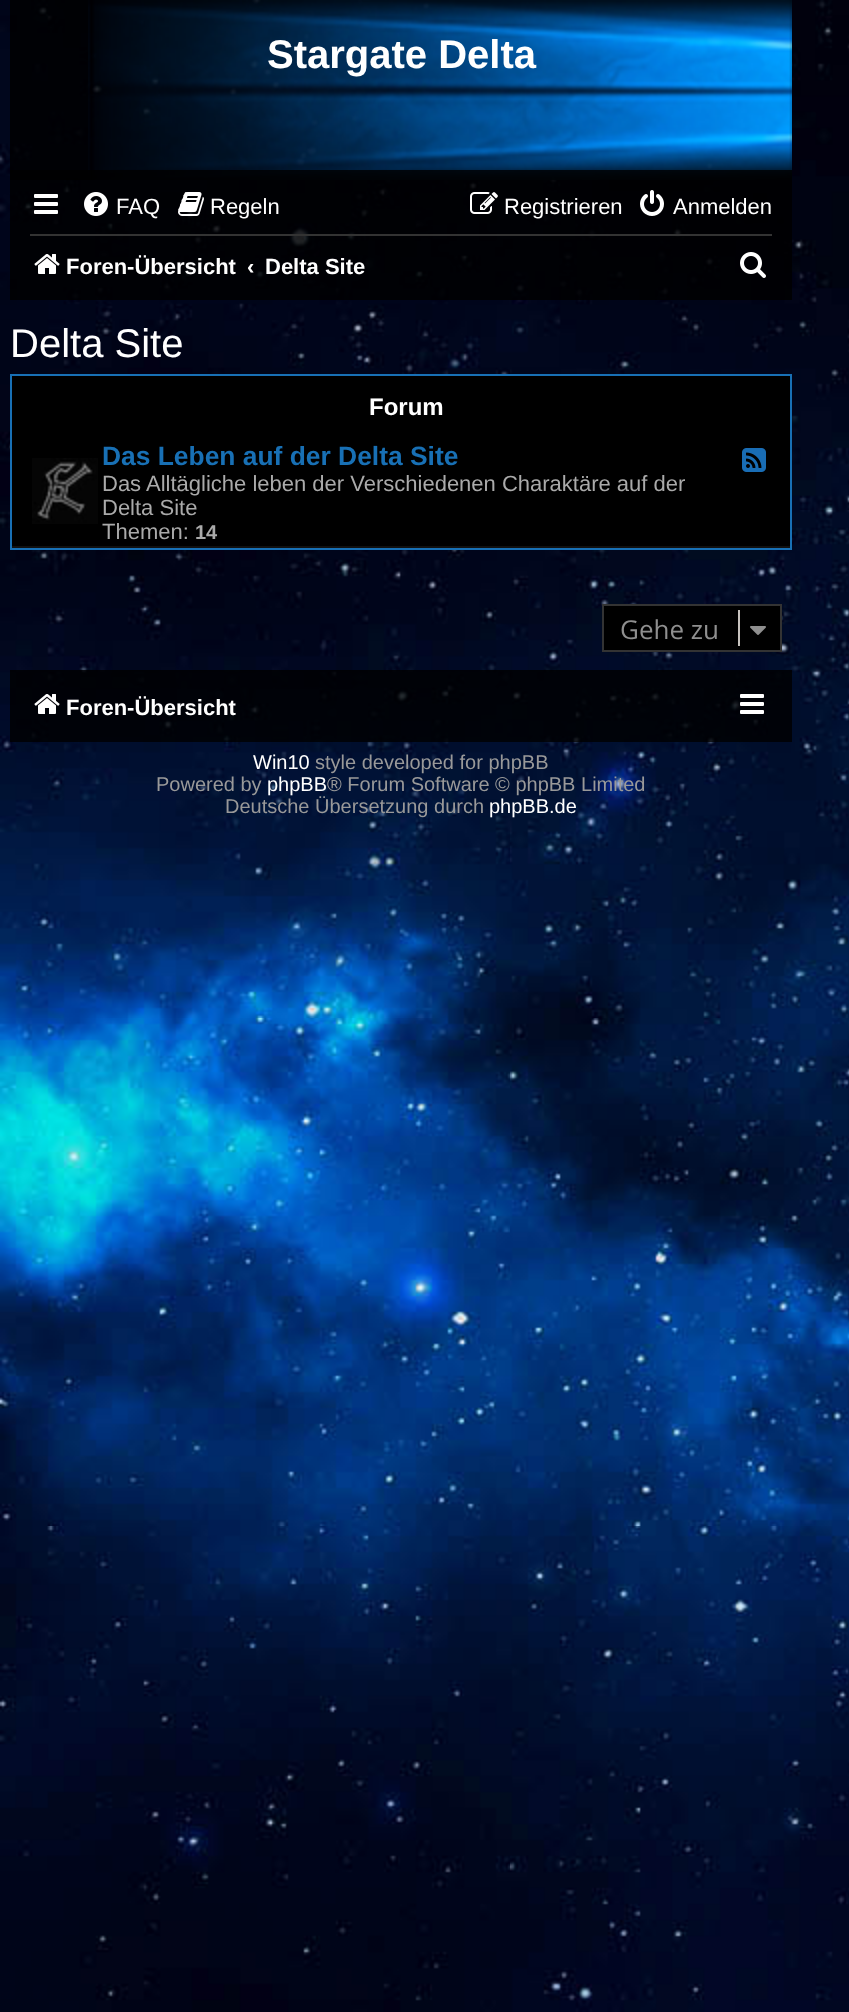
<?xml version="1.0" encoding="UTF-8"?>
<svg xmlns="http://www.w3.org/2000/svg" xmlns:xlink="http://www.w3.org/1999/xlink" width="849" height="2012">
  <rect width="100%" height="100%" fill="#ffffff" />
  <image x="0" y="0" width="849" height="2012" xlink:href="image1.png" />
  <rect x="10" width="782" height="180" fill="#000000" fill-opacity="0.8" />
  <image x="88" y="0" width="704" height="180" xlink:href="image2.png" />
  <rect x="10" y="170" width="782" height="130" fill="#000000" fill-opacity="0.8" />
  <image x="34" y="194" width="24" height="20" xlink:href="image3.png" />
  <image x="84" y="192" width="24" height="24" xlink:href="image4.png" />
  <image x="178" y="192" width="26" height="24" xlink:href="image5.png" />
  <image x="470" y="192" width="28" height="22" xlink:href="image6.png" />
  <image x="640" y="190" width="24" height="26" xlink:href="image7.png" />
  <rect x="30" y="234" width="742" height="2" fill="#333333" />
  <image x="34" y="254" width="26" height="20" xlink:href="image8.png" />
  <image x="740" y="252" width="26" height="26" xlink:href="image9.png" />
  <rect x="12" y="376" width="778" height="170" fill="#000000" />
  <rect x="11" y="375" width="780" height="174" fill="none" stroke="#1870b5" stroke-width="2" />
  <rect x="12" y="546" width="778" height="2" fill="#111111" />
  <image x="32" y="458" width="66" height="66" xlink:href="image10.png" />
  <image x="742" y="448" width="24" height="24" xlink:href="image11.png" />
  <rect x="603" y="605" width="178" height="46" fill="#000000" stroke="#333333" stroke-width="2" />
  <rect x="738" y="610" width="2" height="36" fill="#c7c3bf" />
  <image x="750" y="626" width="16" height="9" xlink:href="image12.png" />
  <rect x="10" y="670" width="782" height="72" fill="#000000" fill-opacity="0.8" />
  <image x="34" y="694" width="26" height="20" xlink:href="image13.png" />
  <image x="740" y="694" width="24" height="20" xlink:href="image14.png" />
  <text x="267" y="68" style="font-family: Liberation Sans; font-size: 40px; font-weight: bold; fill: #ffffff">Stargate Delta</text>
  <text x="116" y="214" style="font-family: Liberation Sans; font-size: 22px; fill: #ffffff">FAQ</text>
  <text x="210" y="214" style="font-family: Liberation Sans; font-size: 22px; fill: #ffffff">Regeln</text>
  <text x="504" y="214" style="font-family: Liberation Sans; font-size: 22px; fill: #ffffff">Registrieren</text>
  <text x="673" y="214" style="font-family: Liberation Sans; font-size: 22px; fill: #ffffff">Anmelden</text>
  <text x="66" y="274" style="font-family: Liberation Sans; font-size: 22px; font-weight: bold; fill: #ffffff">Foren-Übersicht</text>
  <text x="247" y="274" style="font-family: Liberation Sans; font-size: 22px; font-weight: bold; fill: #ffffff">‹</text>
  <text x="265" y="274" style="font-family: Liberation Sans; font-size: 22px; font-weight: bold; fill: #ffffff">Delta Site</text>
  <text x="10" y="357" style="font-family: Liberation Sans; font-size: 40px; fill: #ffffff">Delta Site</text>
  <text x="369" y="415" style="font-family: Liberation Sans; font-size: 24px; font-weight: bold; fill: #ffffff">Forum</text>
  <text x="102" y="465" style="font-family: Liberation Sans; font-size: 26.4px; font-weight: bold; fill: #1870b5">Das Leben auf der Delta Site</text>
  <text x="102" y="491" style="font-family: Liberation Sans; font-size: 22px; fill: #aaaaaa">Das Alltägliche leben der Verschiedenen Charaktäre auf der</text>
  <text x="102" y="515" style="font-family: Liberation Sans; font-size: 22px; fill: #aaaaaa">Delta Site</text>
  <text x="102" y="539" style="font-family: Liberation Sans; font-size: 22px; fill: #aaaaaa">Themen:</text>
  <text x="195" y="539" style="font-family: Liberation Sans; font-size: 20px; font-weight: bold; fill: #aaaaaa">14</text>
  <text x="620" y="639" style="font-family: Open Sans; font-size: 26px; fill: #8f8f8f">Gehe zu</text>
  <text x="66" y="715" style="font-family: Liberation Sans; font-size: 22px; font-weight: bold; fill: #ffffff">Foren-Übersicht</text>
  <text x="253" y="769" style="font-family: Liberation Sans; font-size: 20px; fill: #ffffff">Win10</text>
  <text x="315" y="769" style="font-family: Liberation Sans; font-size: 20px; fill: #999999">style developed for phpBB</text>
  <text x="156" y="791" style="font-family: Liberation Sans; font-size: 20px; fill: #999999">Powered by</text>
  <text x="267" y="791" style="font-family: Liberation Sans; font-size: 20px; fill: #ffffff">phpBB</text>
  <text x="327" y="791" style="font-family: Liberation Sans; font-size: 20px; fill: #999999">® Forum Software © phpBB Limited</text>
  <text x="225" y="813" style="font-family: Liberation Sans; font-size: 20px; fill: #999999">Deutsche Übersetzung durch</text>
  <text x="489" y="813" style="font-family: Liberation Sans; font-size: 20px; fill: #ffffff">phpBB.de</text>
</svg>
